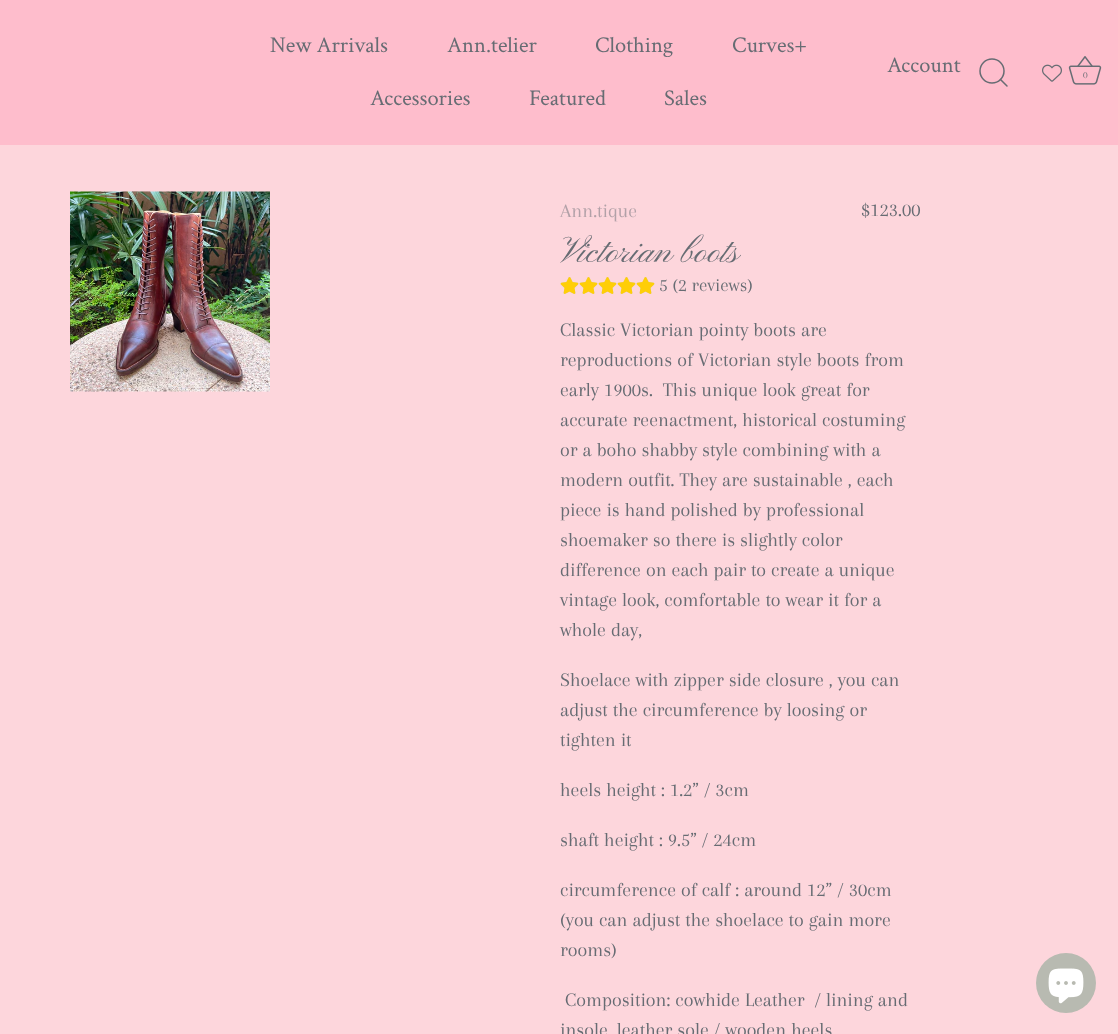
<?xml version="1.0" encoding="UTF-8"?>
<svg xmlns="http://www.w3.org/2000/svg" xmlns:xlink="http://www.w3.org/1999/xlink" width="1118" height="1034">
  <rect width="100%" height="100%" fill="#fdd6dc" />
  <rect width="1118" height="145" fill="#febdcc" />
  <circle cx="992" cy="71" r="12" fill="none" stroke="#676c73" stroke-width="1.5" />
  <path d="M 1007 86 l -6.5 -6.5" fill="none" stroke="#676c73" stroke-width="1.5" stroke-linecap="round" stroke-linejoin="round" />
  <image x="1042" y="64" width="20" height="18" xlink:href="image1.png" />
  <image x="1068" y="56" width="34" height="29" xlink:href="image2.png" />
  <image x="70" y="191" width="200" height="201" xlink:href="image3.png" />
  <image x="560" y="277" width="19" height="17" xlink:href="image4.png" />
  <image x="579" y="277" width="19" height="17" xlink:href="image4.png" />
  <image x="598" y="277" width="19" height="17" xlink:href="image4.png" />
  <image x="617" y="277" width="19" height="17" xlink:href="image4.png" />
  <image x="636" y="277" width="19" height="17" xlink:href="image4.png" />
  <image x="560" y="277" width="19" height="17" xlink:href="image5.png" />
  <image x="579" y="277" width="19" height="17" xlink:href="image5.png" />
  <image x="598" y="277" width="19" height="17" xlink:href="image5.png" />
  <image x="617" y="277" width="19" height="17" xlink:href="image5.png" />
  <image x="636" y="277" width="19" height="17" xlink:href="image5.png" />
  <circle cx="1066" cy="983" r="30" fill="#b8bab1" />
  <image x="1048" y="968" width="36" height="36" xlink:href="image6.png" />
  <text x="270" y="52" style="font-family: Crimson Text; font-size: 22.5px; fill: #676c73">New Arrivals</text>
  <text x="447" y="52" style="font-family: Crimson Text; font-size: 22.5px; fill: #676c73">Ann.telier</text>
  <text x="595" y="52" style="font-family: Crimson Text; font-size: 22.5px; fill: #676c73">Clothing</text>
  <text x="732" y="52" style="font-family: Crimson Text; font-size: 22.5px; fill: #676c73">Curves+</text>
  <text x="370" y="105" style="font-family: Crimson Text; font-size: 22.5px; fill: #676c73">Accessories</text>
  <text x="529" y="105" style="font-family: Crimson Text; font-size: 22.5px; fill: #676c73">Featured</text>
  <text x="664" y="105" style="font-family: Crimson Text; font-size: 22.5px; fill: #676c73">Sales</text>
  <text x="887" y="72" style="font-family: Crimson Text; font-size: 22.5px; fill: #676c73">Account</text>
  <text x="1083" y="78" style="font-family: Arapey; font-size: 10px; fill: #676c73">0</text>
  <text x="560" y="217" style="font-family: Arapey; font-size: 20px; fill: #b2a1a8">Ann.tique</text>
  <text x="861" y="216" style="font-family: Arapey; font-size: 20px; fill: #676c73">$123.00</text>
  <text x="560" y="262" style="font-family: Pinyon Script; font-size: 36px; fill: #676c73">Victorian boots</text>
  <text x="659" y="291" style="font-family: Arapey; font-size: 19px; fill: #676c73">5 (2 reviews)</text>
  <text x="560" y="336" style="font-family: Arapey; font-size: 20px; fill: #676c73">Classic Victorian pointy boots are</text>
  <text x="560" y="366" style="font-family: Arapey; font-size: 20px; fill: #676c73">reproductions of Victorian style boots from</text>
  <text x="560" y="396" style="font-family: Arapey; font-size: 20px; fill: #676c73" xml:space="preserve">early 1900s.  This unique look great for</text>
  <text x="560" y="426" style="font-family: Arapey; font-size: 20px; fill: #676c73">accurate reenactment, historical costuming</text>
  <text x="560" y="456" style="font-family: Arapey; font-size: 20px; fill: #676c73">or a boho shabby style combining with a</text>
  <text x="560" y="486" style="font-family: Arapey; font-size: 20px; fill: #676c73">modern outfit. They are sustainable , each</text>
  <text x="560" y="516" style="font-family: Arapey; font-size: 20px; fill: #676c73">piece is hand polished by professional</text>
  <text x="560" y="546" style="font-family: Arapey; font-size: 20px; fill: #676c73">shoemaker so there is slightly color</text>
  <text x="560" y="576" style="font-family: Arapey; font-size: 20px; fill: #676c73">difference on each pair to create a unique</text>
  <text x="560" y="606" style="font-family: Arapey; font-size: 20px; fill: #676c73">vintage look, comfortable to wear it for a</text>
  <text x="560" y="636" style="font-family: Arapey; font-size: 20px; fill: #676c73">whole day,</text>
  <text x="560" y="686" style="font-family: Arapey; font-size: 20px; fill: #676c73">Shoelace with zipper side closure , you can</text>
  <text x="560" y="716" style="font-family: Arapey; font-size: 20px; fill: #676c73">adjust the circumference by loosing or</text>
  <text x="560" y="746" style="font-family: Arapey; font-size: 20px; fill: #676c73">tighten it</text>
  <text x="560" y="796" style="font-family: Arapey; font-size: 20px; fill: #676c73">heels height : 1.2” / 3cm</text>
  <text x="560" y="846" style="font-family: Arapey; font-size: 20px; fill: #676c73">shaft height : 9.5” / 24cm</text>
  <text x="560" y="896" style="font-family: Arapey; font-size: 20px; fill: #676c73">circumference of calf : around 12” / 30cm</text>
  <text x="560" y="926" style="font-family: Arapey; font-size: 20px; fill: #676c73">(you can adjust the shoelace to gain more</text>
  <text x="560" y="956" style="font-family: Arapey; font-size: 20px; fill: #676c73">rooms)</text>
  <text x="565" y="1006" style="font-family: Arapey; font-size: 20px; fill: #676c73" xml:space="preserve">Composition: cowhide Leather  / lining and</text>
  <text x="560" y="1036" style="font-family: Arapey; font-size: 20px; fill: #676c73">insole, leather sole / wooden heels</text>
</svg>
